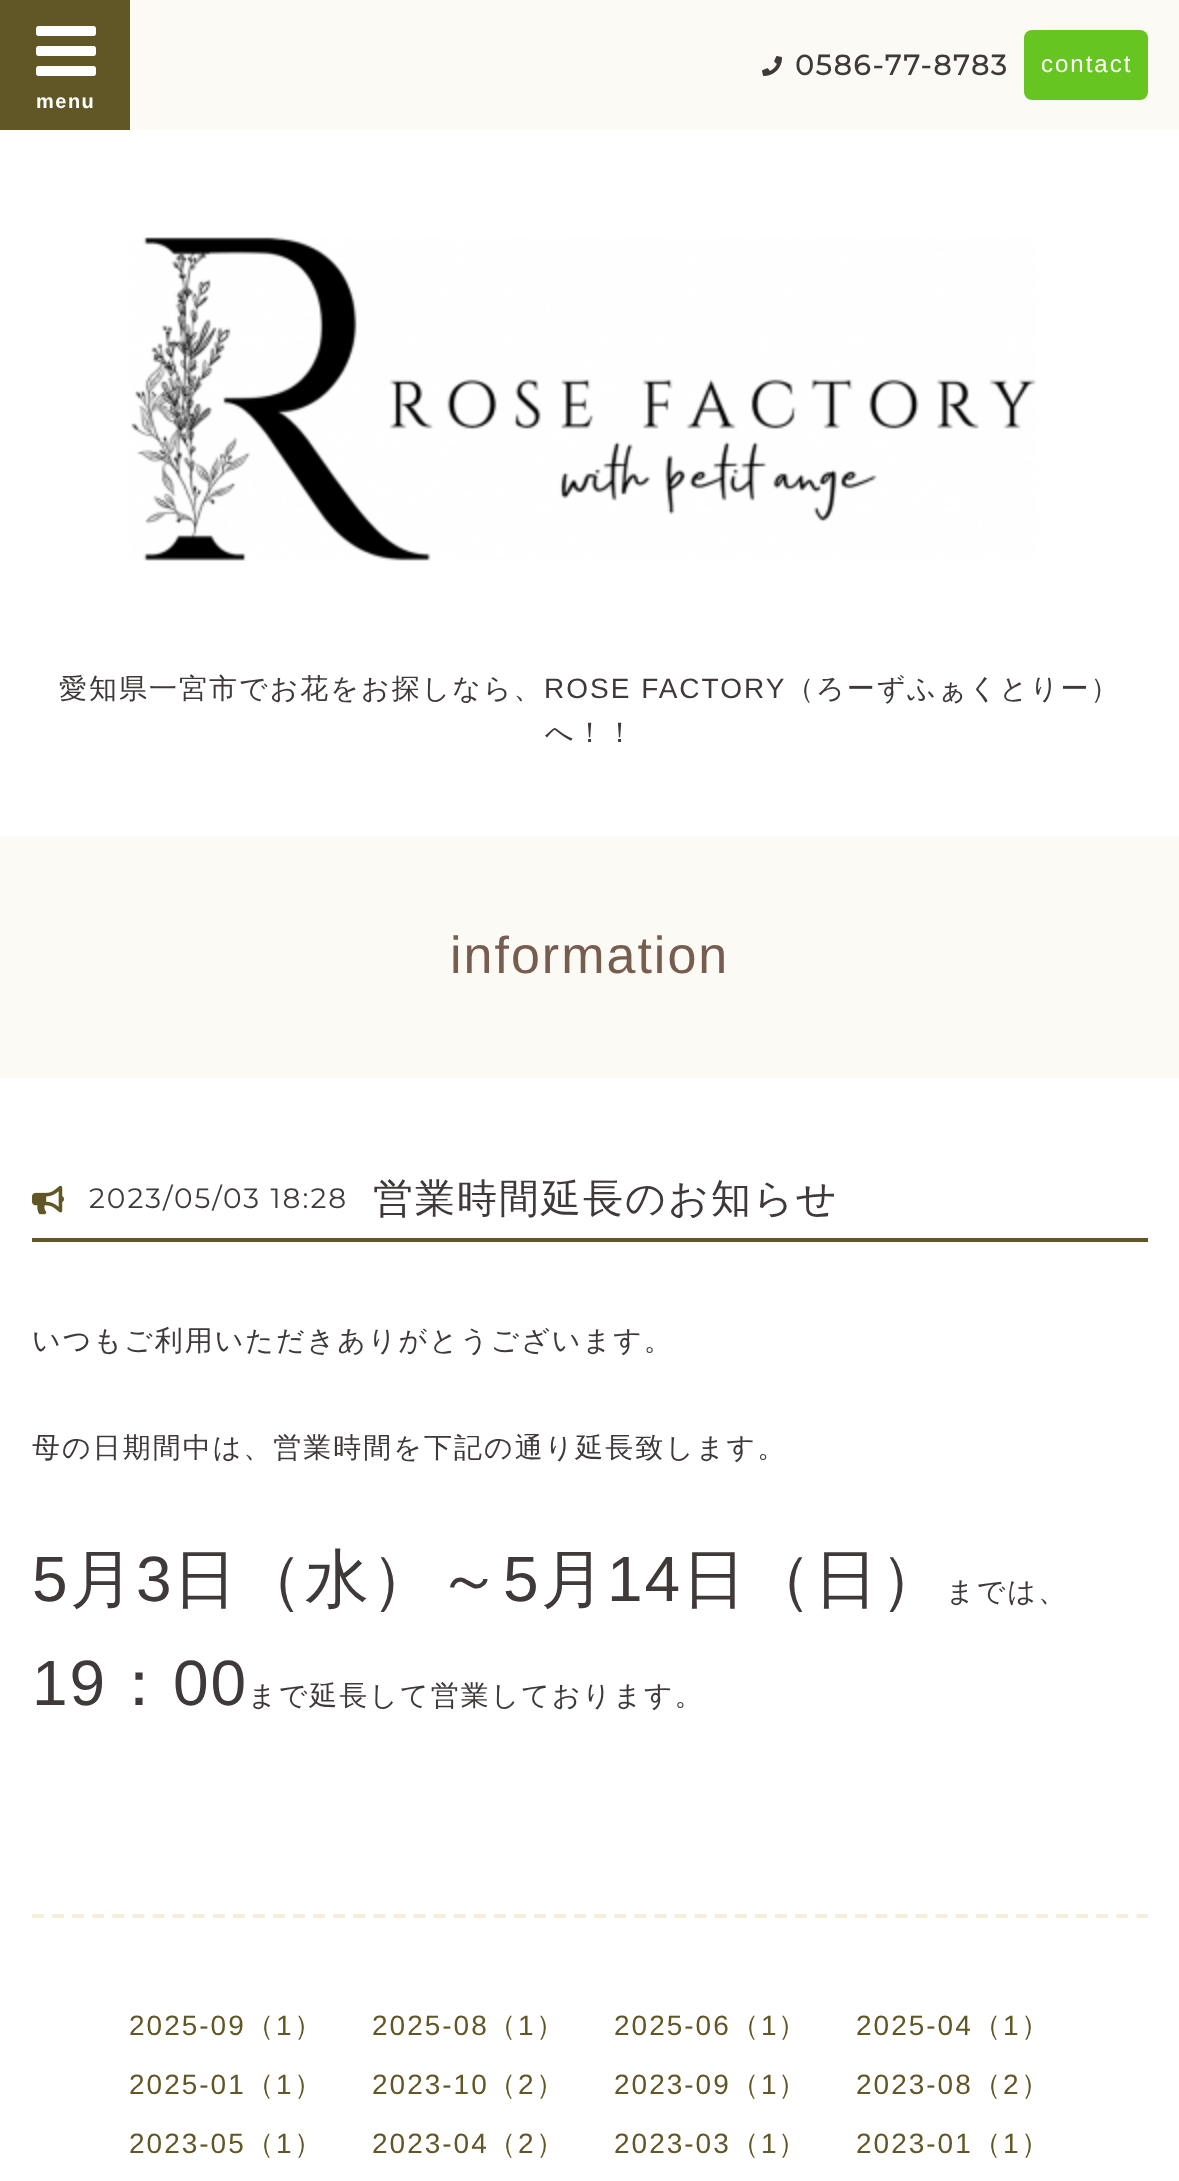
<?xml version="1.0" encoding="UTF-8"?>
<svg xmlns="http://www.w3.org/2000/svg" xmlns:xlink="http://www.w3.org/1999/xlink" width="1179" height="2181">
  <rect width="100%" height="100%" fill="#ffffff" />
  <rect x="130" width="1049" height="130" fill="#fcfaf4" />
  <image x="762" y="56" width="20" height="20" xlink:href="image1.png" />
  <rect x="1024" y="30" width="124" height="70" rx="8" fill="#67c522" />
  <rect width="130" height="130" fill="#615625" />
  <image x="36" y="26" width="60" height="50" xlink:href="image2.png" />
  <image x="130" y="237" width="907" height="324" xlink:href="image3.png" />
  <rect y="836" width="1179" height="242" fill="#fcfaf4" />
  <rect x="32" y="1238" width="1116" height="4" fill="#615625" />
  <image x="32" y="1185" width="32" height="30" xlink:href="image4.png" />
  <path d="M 32 1916 h 1116" fill="none" stroke="#f5eedb" stroke-width="4" stroke-dasharray="12 8.08" />
  <text x="795" y="75" style="font-family: Montserrat; font-size: 28px; font-weight: bold; letter-spacing: 2px; fill: #3f3a39">0586-77-8783</text>
  <text x="1041" y="72" style="font-family: Liberation Sans; font-size: 24px; letter-spacing: 2px; fill: #ffffff">contact</text>
  <text x="36" y="108" style="font-family: Liberation Sans; font-size: 20px; font-weight: bold; letter-spacing: 1.5px; fill: #ffffff">menu</text>
  <text x="59" y="698" style="font-family: WenQuanYi Zen Hei; font-size: 28px; font-weight: 500; letter-spacing: 2px; fill: #3f3a39">愛知県一宮市でお花をお探しなら、</text>
  <text x="544" y="698" style="font-family: Liberation Sans; font-size: 28px; letter-spacing: 2px; fill: #3f3a39">ROSE FACTORY</text>
  <text x="786" y="698" style="font-family: WenQuanYi Zen Hei; font-size: 28px; font-weight: 500; letter-spacing: 2px; fill: #3f3a39">（ろーずふぁくとりー）</text>
  <text x="545" y="742" style="font-family: WenQuanYi Zen Hei; font-size: 28px; font-weight: 500; letter-spacing: 2px; fill: #3f3a39">へ！！</text>
  <text x="450" y="973" style="font-family: Liberation Sans; font-size: 52px; letter-spacing: 2px; fill: #775c50">information</text>
  <text x="89" y="1208" style="font-family: Montserrat; font-size: 28px; font-weight: 100; letter-spacing: 2px; fill: #3f3a39">2023/05/03 18:28</text>
  <text x="373" y="1212" style="font-family: WenQuanYi Zen Hei; font-size: 40px; font-weight: 500; letter-spacing: 2px; fill: #3f3a39">営業時間延長のお知らせ</text>
  <text x="32" y="1350" style="font-family: WenQuanYi Zen Hei; font-size: 28px; font-weight: 500; letter-spacing: 2px; fill: #3f3a39">いつもご利用いただきありがとうございます。</text>
  <text x="32" y="1457" style="font-family: WenQuanYi Zen Hei; font-size: 28px; font-weight: 500; letter-spacing: 2px; fill: #3f3a39">母の日期間中は、営業時間を下記の通り延長致します。</text>
  <text x="32" y="1601" style="font-family: Liberation Sans; font-size: 64px; letter-spacing: 2px; fill: #3f3a39">5</text>
  <text x="70" y="1601" style="font-family: WenQuanYi Zen Hei; font-size: 64px; font-weight: 500; letter-spacing: 2px; fill: #3f3a39">月</text>
  <text x="136" y="1601" style="font-family: Liberation Sans; font-size: 64px; letter-spacing: 2px; fill: #3f3a39">3</text>
  <text x="173" y="1601" style="font-family: WenQuanYi Zen Hei; font-size: 64px; font-weight: 500; letter-spacing: 2px; fill: #3f3a39">日（水）～</text>
  <text x="503" y="1601" style="font-family: Liberation Sans; font-size: 64px; letter-spacing: 2px; fill: #3f3a39">5</text>
  <text x="541" y="1601" style="font-family: WenQuanYi Zen Hei; font-size: 64px; font-weight: 500; letter-spacing: 2px; fill: #3f3a39">月</text>
  <text x="607" y="1601" style="font-family: Liberation Sans; font-size: 64px; letter-spacing: 2px; fill: #3f3a39">14</text>
  <text x="682" y="1601" style="font-family: WenQuanYi Zen Hei; font-size: 64px; font-weight: 500; letter-spacing: 2px; fill: #3f3a39">日（日）</text>
  <text x="946" y="1601" style="font-family: WenQuanYi Zen Hei; font-size: 28px; font-weight: 500; letter-spacing: 2px; fill: #3f3a39">までは、</text>
  <text x="32" y="1705" style="font-family: Liberation Sans; font-size: 64px; letter-spacing: 2px; fill: #3f3a39">19</text>
  <text x="107" y="1705" style="font-family: WenQuanYi Zen Hei; font-size: 64px; font-weight: 500; letter-spacing: 2px; fill: #3f3a39">：</text>
  <text x="173" y="1705" style="font-family: Liberation Sans; font-size: 64px; letter-spacing: 2px; fill: #3f3a39">00</text>
  <text x="248" y="1705" style="font-family: WenQuanYi Zen Hei; font-size: 28px; font-weight: 500; letter-spacing: 2px; fill: #3f3a39">まで延長して営業しております。</text>
  <text x="129" y="2035" style="font-family: Liberation Sans; font-size: 28px; letter-spacing: 2px; fill: #615625">2025-09</text>
  <text x="246" y="2035" style="font-family: WenQuanYi Zen Hei; font-size: 28px; font-weight: 500; letter-spacing: 2px; fill: #615625">（</text>
  <text x="276" y="2035" style="font-family: Liberation Sans; font-size: 28px; letter-spacing: 2px; fill: #615625">1</text>
  <text x="294" y="2035" style="font-family: WenQuanYi Zen Hei; font-size: 28px; font-weight: 500; letter-spacing: 2px; fill: #615625">）</text>
  <text x="372" y="2035" style="font-family: Liberation Sans; font-size: 28px; letter-spacing: 2px; fill: #615625">2025-08</text>
  <text x="488" y="2035" style="font-family: WenQuanYi Zen Hei; font-size: 28px; font-weight: 500; letter-spacing: 2px; fill: #615625">（</text>
  <text x="518" y="2035" style="font-family: Liberation Sans; font-size: 28px; letter-spacing: 2px; fill: #615625">1</text>
  <text x="536" y="2035" style="font-family: WenQuanYi Zen Hei; font-size: 28px; font-weight: 500; letter-spacing: 2px; fill: #615625">）</text>
  <text x="614" y="2035" style="font-family: Liberation Sans; font-size: 28px; letter-spacing: 2px; fill: #615625">2025-06</text>
  <text x="731" y="2035" style="font-family: WenQuanYi Zen Hei; font-size: 28px; font-weight: 500; letter-spacing: 2px; fill: #615625">（</text>
  <text x="761" y="2035" style="font-family: Liberation Sans; font-size: 28px; letter-spacing: 2px; fill: #615625">1</text>
  <text x="778" y="2035" style="font-family: WenQuanYi Zen Hei; font-size: 28px; font-weight: 500; letter-spacing: 2px; fill: #615625">）</text>
  <text x="856" y="2035" style="font-family: Liberation Sans; font-size: 28px; letter-spacing: 2px; fill: #615625">2025-04</text>
  <text x="973" y="2035" style="font-family: WenQuanYi Zen Hei; font-size: 28px; font-weight: 500; letter-spacing: 2px; fill: #615625">（</text>
  <text x="1003" y="2035" style="font-family: Liberation Sans; font-size: 28px; letter-spacing: 2px; fill: #615625">1</text>
  <text x="1021" y="2035" style="font-family: WenQuanYi Zen Hei; font-size: 28px; font-weight: 500; letter-spacing: 2px; fill: #615625">）</text>
  <text x="129" y="2094" style="font-family: Liberation Sans; font-size: 28px; letter-spacing: 2px; fill: #615625">2025-01</text>
  <text x="246" y="2094" style="font-family: WenQuanYi Zen Hei; font-size: 28px; font-weight: 500; letter-spacing: 2px; fill: #615625">（</text>
  <text x="276" y="2094" style="font-family: Liberation Sans; font-size: 28px; letter-spacing: 2px; fill: #615625">1</text>
  <text x="294" y="2094" style="font-family: WenQuanYi Zen Hei; font-size: 28px; font-weight: 500; letter-spacing: 2px; fill: #615625">）</text>
  <text x="372" y="2094" style="font-family: Liberation Sans; font-size: 28px; letter-spacing: 2px; fill: #615625">2023-10</text>
  <text x="488" y="2094" style="font-family: WenQuanYi Zen Hei; font-size: 28px; font-weight: 500; letter-spacing: 2px; fill: #615625">（</text>
  <text x="518" y="2094" style="font-family: Liberation Sans; font-size: 28px; letter-spacing: 2px; fill: #615625">2</text>
  <text x="536" y="2094" style="font-family: WenQuanYi Zen Hei; font-size: 28px; font-weight: 500; letter-spacing: 2px; fill: #615625">）</text>
  <text x="614" y="2094" style="font-family: Liberation Sans; font-size: 28px; letter-spacing: 2px; fill: #615625">2023-09</text>
  <text x="731" y="2094" style="font-family: WenQuanYi Zen Hei; font-size: 28px; font-weight: 500; letter-spacing: 2px; fill: #615625">（</text>
  <text x="761" y="2094" style="font-family: Liberation Sans; font-size: 28px; letter-spacing: 2px; fill: #615625">1</text>
  <text x="778" y="2094" style="font-family: WenQuanYi Zen Hei; font-size: 28px; font-weight: 500; letter-spacing: 2px; fill: #615625">）</text>
  <text x="856" y="2094" style="font-family: Liberation Sans; font-size: 28px; letter-spacing: 2px; fill: #615625">2023-08</text>
  <text x="973" y="2094" style="font-family: WenQuanYi Zen Hei; font-size: 28px; font-weight: 500; letter-spacing: 2px; fill: #615625">（</text>
  <text x="1003" y="2094" style="font-family: Liberation Sans; font-size: 28px; letter-spacing: 2px; fill: #615625">2</text>
  <text x="1021" y="2094" style="font-family: WenQuanYi Zen Hei; font-size: 28px; font-weight: 500; letter-spacing: 2px; fill: #615625">）</text>
  <text x="129" y="2153" style="font-family: Liberation Sans; font-size: 28px; letter-spacing: 2px; fill: #615625">2023-05</text>
  <text x="246" y="2153" style="font-family: WenQuanYi Zen Hei; font-size: 28px; font-weight: 500; letter-spacing: 2px; fill: #615625">（</text>
  <text x="276" y="2153" style="font-family: Liberation Sans; font-size: 28px; letter-spacing: 2px; fill: #615625">1</text>
  <text x="294" y="2153" style="font-family: WenQuanYi Zen Hei; font-size: 28px; font-weight: 500; letter-spacing: 2px; fill: #615625">）</text>
  <text x="372" y="2153" style="font-family: Liberation Sans; font-size: 28px; letter-spacing: 2px; fill: #615625">2023-04</text>
  <text x="488" y="2153" style="font-family: WenQuanYi Zen Hei; font-size: 28px; font-weight: 500; letter-spacing: 2px; fill: #615625">（</text>
  <text x="518" y="2153" style="font-family: Liberation Sans; font-size: 28px; letter-spacing: 2px; fill: #615625">2</text>
  <text x="536" y="2153" style="font-family: WenQuanYi Zen Hei; font-size: 28px; font-weight: 500; letter-spacing: 2px; fill: #615625">）</text>
  <text x="614" y="2153" style="font-family: Liberation Sans; font-size: 28px; letter-spacing: 2px; fill: #615625">2023-03</text>
  <text x="731" y="2153" style="font-family: WenQuanYi Zen Hei; font-size: 28px; font-weight: 500; letter-spacing: 2px; fill: #615625">（</text>
  <text x="761" y="2153" style="font-family: Liberation Sans; font-size: 28px; letter-spacing: 2px; fill: #615625">1</text>
  <text x="778" y="2153" style="font-family: WenQuanYi Zen Hei; font-size: 28px; font-weight: 500; letter-spacing: 2px; fill: #615625">）</text>
  <text x="856" y="2153" style="font-family: Liberation Sans; font-size: 28px; letter-spacing: 2px; fill: #615625">2023-01</text>
  <text x="973" y="2153" style="font-family: WenQuanYi Zen Hei; font-size: 28px; font-weight: 500; letter-spacing: 2px; fill: #615625">（</text>
  <text x="1003" y="2153" style="font-family: Liberation Sans; font-size: 28px; letter-spacing: 2px; fill: #615625">1</text>
  <text x="1021" y="2153" style="font-family: WenQuanYi Zen Hei; font-size: 28px; font-weight: 500; letter-spacing: 2px; fill: #615625">）</text>
</svg>
